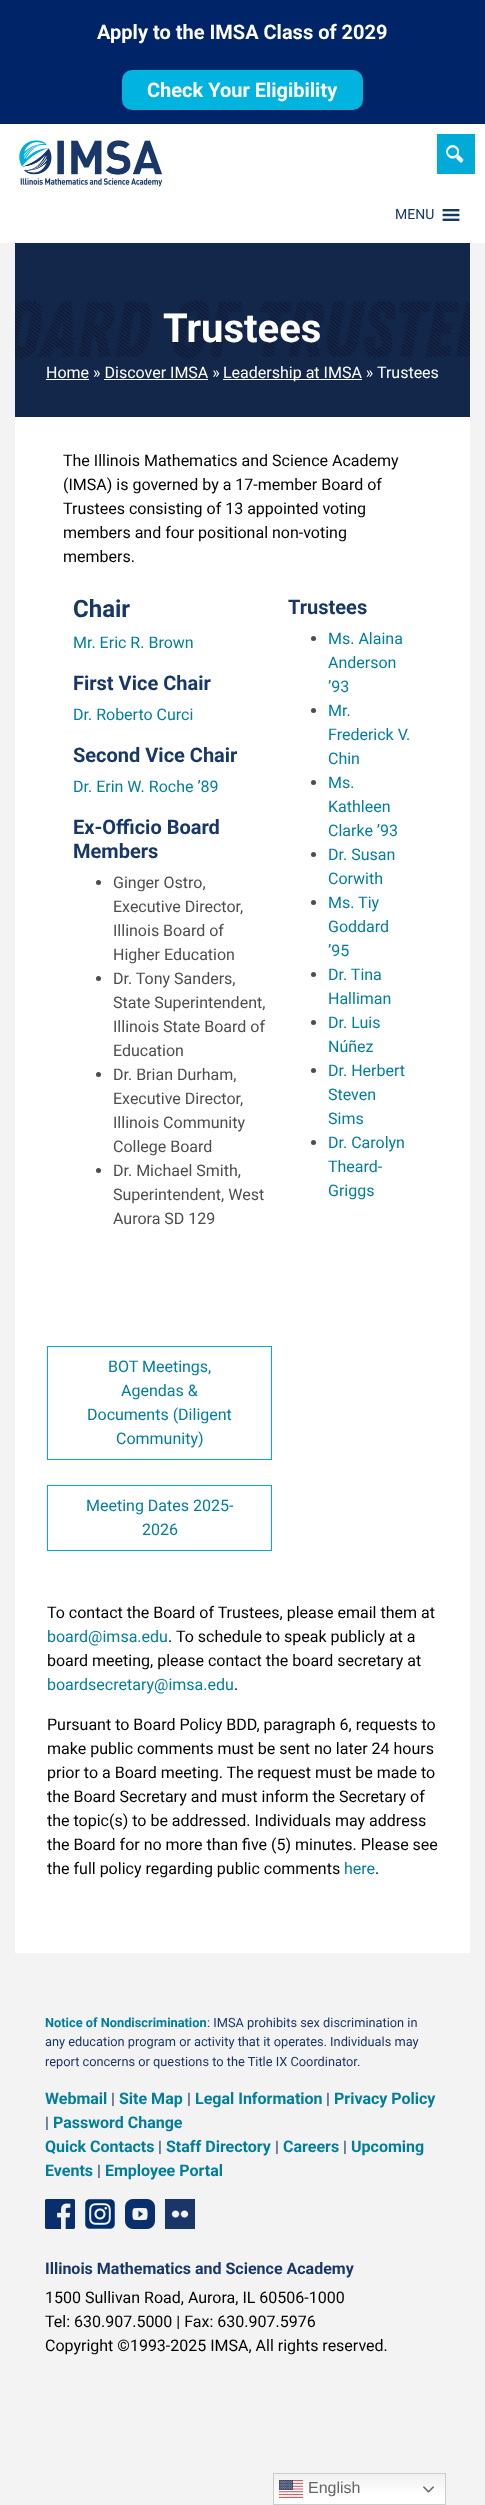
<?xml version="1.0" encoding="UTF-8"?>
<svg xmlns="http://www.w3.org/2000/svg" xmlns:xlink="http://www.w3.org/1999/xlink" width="485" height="2505">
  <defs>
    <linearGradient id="g1" gradientUnits="userSpaceOnUse" x1="360" y1="2473" x2="360" y2="2505"><stop offset="0" stop-color="#efefef" /><stop offset="0.7" stop-color="#ffffff" /></linearGradient>
  </defs>
  <rect width="100%" height="100%" fill="#f4f3f4" />
  <rect width="485" height="124" fill="#002468" />
  <rect x="122" y="70" width="241" height="40" rx="10" fill="#00b4df" />
  <rect y="124" width="485" height="119" fill="#ffffff" />
  <image x="19" y="140" width="144" height="47" xlink:href="image1.png" />
  <rect x="437" y="134" width="38" height="40" fill="#00acd7" />
  <image x="446" y="145" width="18" height="19" xlink:href="image2.png" />
  <image x="442" y="209" width="18" height="12" xlink:href="image3.png" />
  <image x="15" y="243" width="455" height="174" xlink:href="image4.png" />
  <rect x="46" y="379" width="43" height="1" fill="#ffffff" />
  <rect x="223" y="379" width="139" height="1" fill="#ffffff" />
  <rect x="104" y="379" width="104" height="1" fill="#ffffff" />
  <rect x="15" y="417" width="455" height="1536" fill="#ffffff" />
  <circle cx="98.5" cy="882.5" r="2.5" fill="#4d4d4d" />
  <circle cx="98.5" cy="978.5" r="2.5" fill="#4d4d4d" />
  <circle cx="98.5" cy="1074.5" r="2.5" fill="#4d4d4d" />
  <circle cx="98.5" cy="1170.5" r="2.5" fill="#4d4d4d" />
  <circle cx="313.5" cy="638.5" r="2.5" fill="#4d4d4d" />
  <circle cx="313.5" cy="710.5" r="2.5" fill="#4d4d4d" />
  <circle cx="313.5" cy="782.5" r="2.5" fill="#4d4d4d" />
  <circle cx="313.5" cy="854.5" r="2.5" fill="#4d4d4d" />
  <circle cx="313.5" cy="902.5" r="2.5" fill="#4d4d4d" />
  <circle cx="313.5" cy="974.5" r="2.5" fill="#4d4d4d" />
  <circle cx="313.5" cy="1022.5" r="2.5" fill="#4d4d4d" />
  <circle cx="313.5" cy="1070.5" r="2.5" fill="#4d4d4d" />
  <circle cx="313.5" cy="1142.5" r="2.5" fill="#4d4d4d" />
  <rect x="47.5" y="1346.5" width="224" height="113" fill="none" stroke="#01acd7" />
  <rect x="47.5" y="1485.5" width="224" height="65" fill="none" stroke="#01acd7" />
  <image x="45" y="2199" width="30" height="30" xlink:href="image5.png" />
  <image x="85" y="2199" width="30" height="30" xlink:href="image6.png" />
  <image x="125" y="2199" width="30" height="30" xlink:href="image7.png" />
  <image x="165" y="2199" width="30" height="30" xlink:href="image8.png" />
  <rect x="274" y="2474" width="171" height="30" fill="url(#g1)" />
  <rect x="273.5" y="2473.5" width="172" height="31" fill="none" stroke="#cccccc" />
  <image x="279" y="2480" width="24" height="18" xlink:href="image9.png" />
  <image x="423" y="2486" width="11" height="7" xlink:href="image10.png" />
  <text x="97" y="39" style="font-family: Roboto; font-size: 20px; font-weight: bold; fill: #ffffff">Apply to the IMSA Class of 2029</text>
  <text x="147" y="97" style="font-family: Roboto; font-size: 20px; font-weight: bold; fill: #ffffff">Check Your Eligibility</text>
  <text x="395" y="219" style="font-family: Roboto; font-size: 14px; fill: #183769">MENU</text>
  <text x="163" y="342" style="font-family: Roboto; font-size: 40px; font-weight: bold; fill: #ffffff">Trustees</text>
  <text x="46" y="378" style="font-family: Roboto; font-size: 16px; fill: #ffffff">Home » Discover IMSA »</text>
  <text x="223" y="378" style="font-family: Roboto; font-size: 16px; fill: #ffffff">Leadership at IMSA » Trustees</text>
  <text x="63" y="466" style="font-family: Roboto; font-size: 16px; fill: #000000">The Illinois Mathematics and Science Academy</text>
  <text x="63" y="490" style="font-family: Roboto; font-size: 16px; fill: #000000">(IMSA) is governed by a 17-member Board of</text>
  <text x="63" y="514" style="font-family: Roboto; font-size: 16px; fill: #000000">Trustees consisting of 13 appointed voting</text>
  <text x="63" y="538" style="font-family: Roboto; font-size: 16px; fill: #000000">members and four positional non-voting</text>
  <text x="63" y="562" style="font-family: Roboto; font-size: 16px; fill: #000000">members.</text>
  <text x="73" y="617" style="font-family: Roboto; font-size: 24px; font-weight: bold; fill: #183769">Chair</text>
  <text x="73" y="648" style="font-family: Roboto; font-size: 16px; fill: #007e9e">Mr. Eric R. Brown</text>
  <text x="73" y="690" style="font-family: Roboto; font-size: 20px; font-weight: bold; fill: #183769">First Vice Chair</text>
  <text x="73" y="720" style="font-family: Roboto; font-size: 16px; fill: #007e9e">Dr. Roberto Curci</text>
  <text x="73" y="762" style="font-family: Roboto; font-size: 20px; font-weight: bold; fill: #183769">Second Vice Chair</text>
  <text x="73" y="792" style="font-family: Roboto; font-size: 16px; fill: #007e9e">Dr. Erin W. Roche ’89</text>
  <text x="73" y="834" style="font-family: Roboto; font-size: 20px; font-weight: bold; fill: #183769">Ex-Officio Board</text>
  <text x="73" y="858" style="font-family: Roboto; font-size: 20px; font-weight: bold; fill: #183769">Members</text>
  <text x="113" y="888" style="font-family: Roboto; font-size: 16px; fill: #4d4d4d">Ginger Ostro,</text>
  <text x="113" y="912" style="font-family: Roboto; font-size: 16px; fill: #4d4d4d">Executive Director,</text>
  <text x="113" y="936" style="font-family: Roboto; font-size: 16px; fill: #4d4d4d">Illinois Board of</text>
  <text x="113" y="960" style="font-family: Roboto; font-size: 16px; fill: #4d4d4d">Higher Education</text>
  <text x="113" y="984" style="font-family: Roboto; font-size: 16px; fill: #4d4d4d">Dr. Tony Sanders,</text>
  <text x="113" y="1008" style="font-family: Roboto; font-size: 16px; fill: #4d4d4d">State Superintendent,</text>
  <text x="113" y="1032" style="font-family: Roboto; font-size: 16px; fill: #4d4d4d">Illinois State Board of</text>
  <text x="113" y="1056" style="font-family: Roboto; font-size: 16px; fill: #4d4d4d">Education</text>
  <text x="113" y="1080" style="font-family: Roboto; font-size: 16px; fill: #4d4d4d">Dr. Brian Durham,</text>
  <text x="113" y="1104" style="font-family: Roboto; font-size: 16px; fill: #4d4d4d">Executive Director,</text>
  <text x="113" y="1128" style="font-family: Roboto; font-size: 16px; fill: #4d4d4d">Illinois Community</text>
  <text x="113" y="1152" style="font-family: Roboto; font-size: 16px; fill: #4d4d4d">College Board</text>
  <text x="113" y="1176" style="font-family: Roboto; font-size: 16px; fill: #4d4d4d">Dr. Michael Smith,</text>
  <text x="113" y="1200" style="font-family: Roboto; font-size: 16px; fill: #4d4d4d">Superintendent, West</text>
  <text x="113" y="1224" style="font-family: Roboto; font-size: 16px; fill: #4d4d4d">Aurora SD 129</text>
  <text x="288" y="614" style="font-family: Roboto; font-size: 20px; font-weight: bold; fill: #183769">Trustees</text>
  <text x="328" y="644" style="font-family: Roboto; font-size: 16px; fill: #007e9e">Ms. Alaina</text>
  <text x="328" y="668" style="font-family: Roboto; font-size: 16px; fill: #007e9e">Anderson</text>
  <text x="328" y="692" style="font-family: Roboto; font-size: 16px; fill: #007e9e">’93</text>
  <text x="328" y="716" style="font-family: Roboto; font-size: 16px; fill: #007e9e">Mr.</text>
  <text x="328" y="740" style="font-family: Roboto; font-size: 16px; fill: #007e9e">Frederick V.</text>
  <text x="328" y="764" style="font-family: Roboto; font-size: 16px; fill: #007e9e">Chin</text>
  <text x="328" y="788" style="font-family: Roboto; font-size: 16px; fill: #007e9e">Ms.</text>
  <text x="328" y="812" style="font-family: Roboto; font-size: 16px; fill: #007e9e">Kathleen</text>
  <text x="328" y="836" style="font-family: Roboto; font-size: 16px; fill: #007e9e">Clarke ’93</text>
  <text x="328" y="860" style="font-family: Roboto; font-size: 16px; fill: #007e9e">Dr. Susan</text>
  <text x="328" y="884" style="font-family: Roboto; font-size: 16px; fill: #007e9e">Corwith</text>
  <text x="328" y="908" style="font-family: Roboto; font-size: 16px; fill: #007e9e">Ms. Tiy</text>
  <text x="328" y="932" style="font-family: Roboto; font-size: 16px; fill: #007e9e">Goddard</text>
  <text x="328" y="956" style="font-family: Roboto; font-size: 16px; fill: #007e9e">’95</text>
  <text x="328" y="980" style="font-family: Roboto; font-size: 16px; fill: #007e9e">Dr. Tina</text>
  <text x="328" y="1004" style="font-family: Roboto; font-size: 16px; fill: #007e9e">Halliman</text>
  <text x="328" y="1028" style="font-family: Roboto; font-size: 16px; fill: #007e9e">Dr. Luis</text>
  <text x="328" y="1052" style="font-family: Roboto; font-size: 16px; fill: #007e9e">Núñez</text>
  <text x="328" y="1076" style="font-family: Roboto; font-size: 16px; fill: #007e9e">Dr. Herbert</text>
  <text x="328" y="1100" style="font-family: Roboto; font-size: 16px; fill: #007e9e">Steven</text>
  <text x="328" y="1124" style="font-family: Roboto; font-size: 16px; fill: #007e9e">Sims</text>
  <text x="328" y="1148" style="font-family: Roboto; font-size: 16px; fill: #007e9e">Dr. Carolyn</text>
  <text x="328" y="1172" style="font-family: Roboto; font-size: 16px; fill: #007e9e">Theard-</text>
  <text x="328" y="1196" style="font-family: Roboto; font-size: 16px; fill: #007e9e">Griggs</text>
  <text x="108" y="1372" style="font-family: Roboto; font-size: 16px; fill: #007e9e">BOT Meetings,</text>
  <text x="121" y="1396" style="font-family: Roboto; font-size: 16px; fill: #007e9e">Agendas &amp;</text>
  <text x="87" y="1420" style="font-family: Roboto; font-size: 16px; fill: #007e9e">Documents (Diligent</text>
  <text x="116" y="1444" style="font-family: Roboto; font-size: 16px; fill: #007e9e">Community)</text>
  <text x="86" y="1511" style="font-family: Roboto; font-size: 16px; fill: #007e9e">Meeting Dates 2025-</text>
  <text x="142" y="1535" style="font-family: Roboto; font-size: 16px; fill: #007e9e">2026</text>
  <text x="47" y="1618" style="font-family: Roboto; font-size: 16px; fill: #000000">To contact the Board of Trustees, please email them at</text>
  <text x="47" y="1642" style="font-family: Roboto; font-size: 16px; fill: #007e9e">board@imsa.edu</text>
  <text x="168" y="1642" style="font-family: Roboto; font-size: 16px; fill: #000000">. To schedule to speak publicly at a</text>
  <text x="47" y="1666" style="font-family: Roboto; font-size: 16px; fill: #000000">board meeting, please contact the board secretary at</text>
  <text x="47" y="1690" style="font-family: Roboto; font-size: 16px; fill: #007e9e">boardsecretary@imsa.edu</text>
  <text x="234" y="1690" style="font-family: Roboto; font-size: 16px; fill: #000000">.</text>
  <text x="47" y="1730" style="font-family: Roboto; font-size: 16px; fill: #000000">Pursuant to Board Policy BDD, paragraph 6, requests to</text>
  <text x="47" y="1754" style="font-family: Roboto; font-size: 16px; fill: #000000">make public comments must be sent no later 24 hours</text>
  <text x="47" y="1778" style="font-family: Roboto; font-size: 16px; fill: #000000">prior to a Board meeting. The request must be made to</text>
  <text x="47" y="1802" style="font-family: Roboto; font-size: 16px; fill: #000000">the Board Secretary and must inform the Secretary of</text>
  <text x="47" y="1826" style="font-family: Roboto; font-size: 16px; fill: #000000">the topic(s) to be addressed. Individuals may address</text>
  <text x="47" y="1850" style="font-family: Roboto; font-size: 16px; fill: #000000">the Board for no more than five (5) minutes. Please see</text>
  <text x="47" y="1874" style="font-family: Roboto; font-size: 16px; fill: #000000">the full policy regarding public comments</text>
  <text x="344" y="1874" style="font-family: Roboto; font-size: 16px; fill: #007e9e">here</text>
  <text x="375" y="1874" style="font-family: Roboto; font-size: 16px; fill: #000000">.</text>
  <text x="45" y="2027" style="font-family: Roboto; font-size: 12.8px; font-weight: bold; fill: #007e9e">Notice of Nondiscrimination</text>
  <text x="207" y="2027" style="font-family: Roboto; font-size: 12.8px; fill: #183769">: IMSA prohibits sex discrimination in</text>
  <text x="45" y="2046" style="font-family: Roboto; font-size: 12.8px; fill: #183769">any education program or activity that it operates. Individuals may</text>
  <text x="45" y="2066" style="font-family: Roboto; font-size: 12.8px; fill: #183769">report concerns or questions to the Title IX Coordinator.</text>
  <text x="45" y="2104" style="font-family: Roboto; font-size: 16px; font-weight: bold; fill: #007e9e">Webmail</text>
  <text x="111" y="2104" style="font-family: Roboto; font-size: 16px; fill: #183769">|</text>
  <text x="119" y="2104" style="font-family: Roboto; font-size: 16px; font-weight: bold; fill: #007e9e">Site Map</text>
  <text x="187" y="2104" style="font-family: Roboto; font-size: 16px; fill: #183769">|</text>
  <text x="195" y="2104" style="font-family: Roboto; font-size: 16px; font-weight: bold; fill: #007e9e">Legal Information</text>
  <text x="326" y="2104" style="font-family: Roboto; font-size: 16px; fill: #183769">|</text>
  <text x="334" y="2104" style="font-family: Roboto; font-size: 16px; font-weight: bold; fill: #007e9e">Privacy Policy</text>
  <text x="45" y="2128" style="font-family: Roboto; font-size: 16px; fill: #183769">|</text>
  <text x="53" y="2128" style="font-family: Roboto; font-size: 16px; font-weight: bold; fill: #007e9e">Password Change</text>
  <text x="45" y="2152" style="font-family: Roboto; font-size: 16px; font-weight: bold; fill: #007e9e">Quick Contacts</text>
  <text x="158" y="2152" style="font-family: Roboto; font-size: 16px; fill: #183769">|</text>
  <text x="166" y="2152" style="font-family: Roboto; font-size: 16px; font-weight: bold; fill: #007e9e">Staff Directory</text>
  <text x="275" y="2152" style="font-family: Roboto; font-size: 16px; fill: #183769">|</text>
  <text x="283" y="2152" style="font-family: Roboto; font-size: 16px; font-weight: bold; fill: #007e9e">Careers</text>
  <text x="343" y="2152" style="font-family: Roboto; font-size: 16px; fill: #183769">|</text>
  <text x="351" y="2152" style="font-family: Roboto; font-size: 16px; font-weight: bold; fill: #007e9e">Upcoming</text>
  <text x="45" y="2176" style="font-family: Roboto; font-size: 16px; font-weight: bold; fill: #007e9e">Events</text>
  <text x="97" y="2176" style="font-family: Roboto; font-size: 16px; fill: #183769">|</text>
  <text x="105" y="2176" style="font-family: Roboto; font-size: 16px; font-weight: bold; fill: #007e9e">Employee Portal</text>
  <text x="45" y="2274" style="font-family: Roboto; font-size: 16px; font-weight: bold; fill: #183769">Illinois Mathematics and Science Academy</text>
  <text x="45" y="2303" style="font-family: Roboto; font-size: 16px; fill: #000000">1500 Sullivan Road, Aurora, IL 60506-1000</text>
  <text x="45" y="2327" style="font-family: Roboto; font-size: 16px; fill: #000000">Tel: 630.907.5000 | Fax: 630.907.5976</text>
  <text x="45" y="2351" style="font-family: Roboto; font-size: 16px; fill: #000000">Copyright ©1993-2025 IMSA, All rights reserved.</text>
  <text x="308" y="2493" style="font-family: Liberation Sans; font-size: 16px; fill: #666666">English</text>
</svg>
